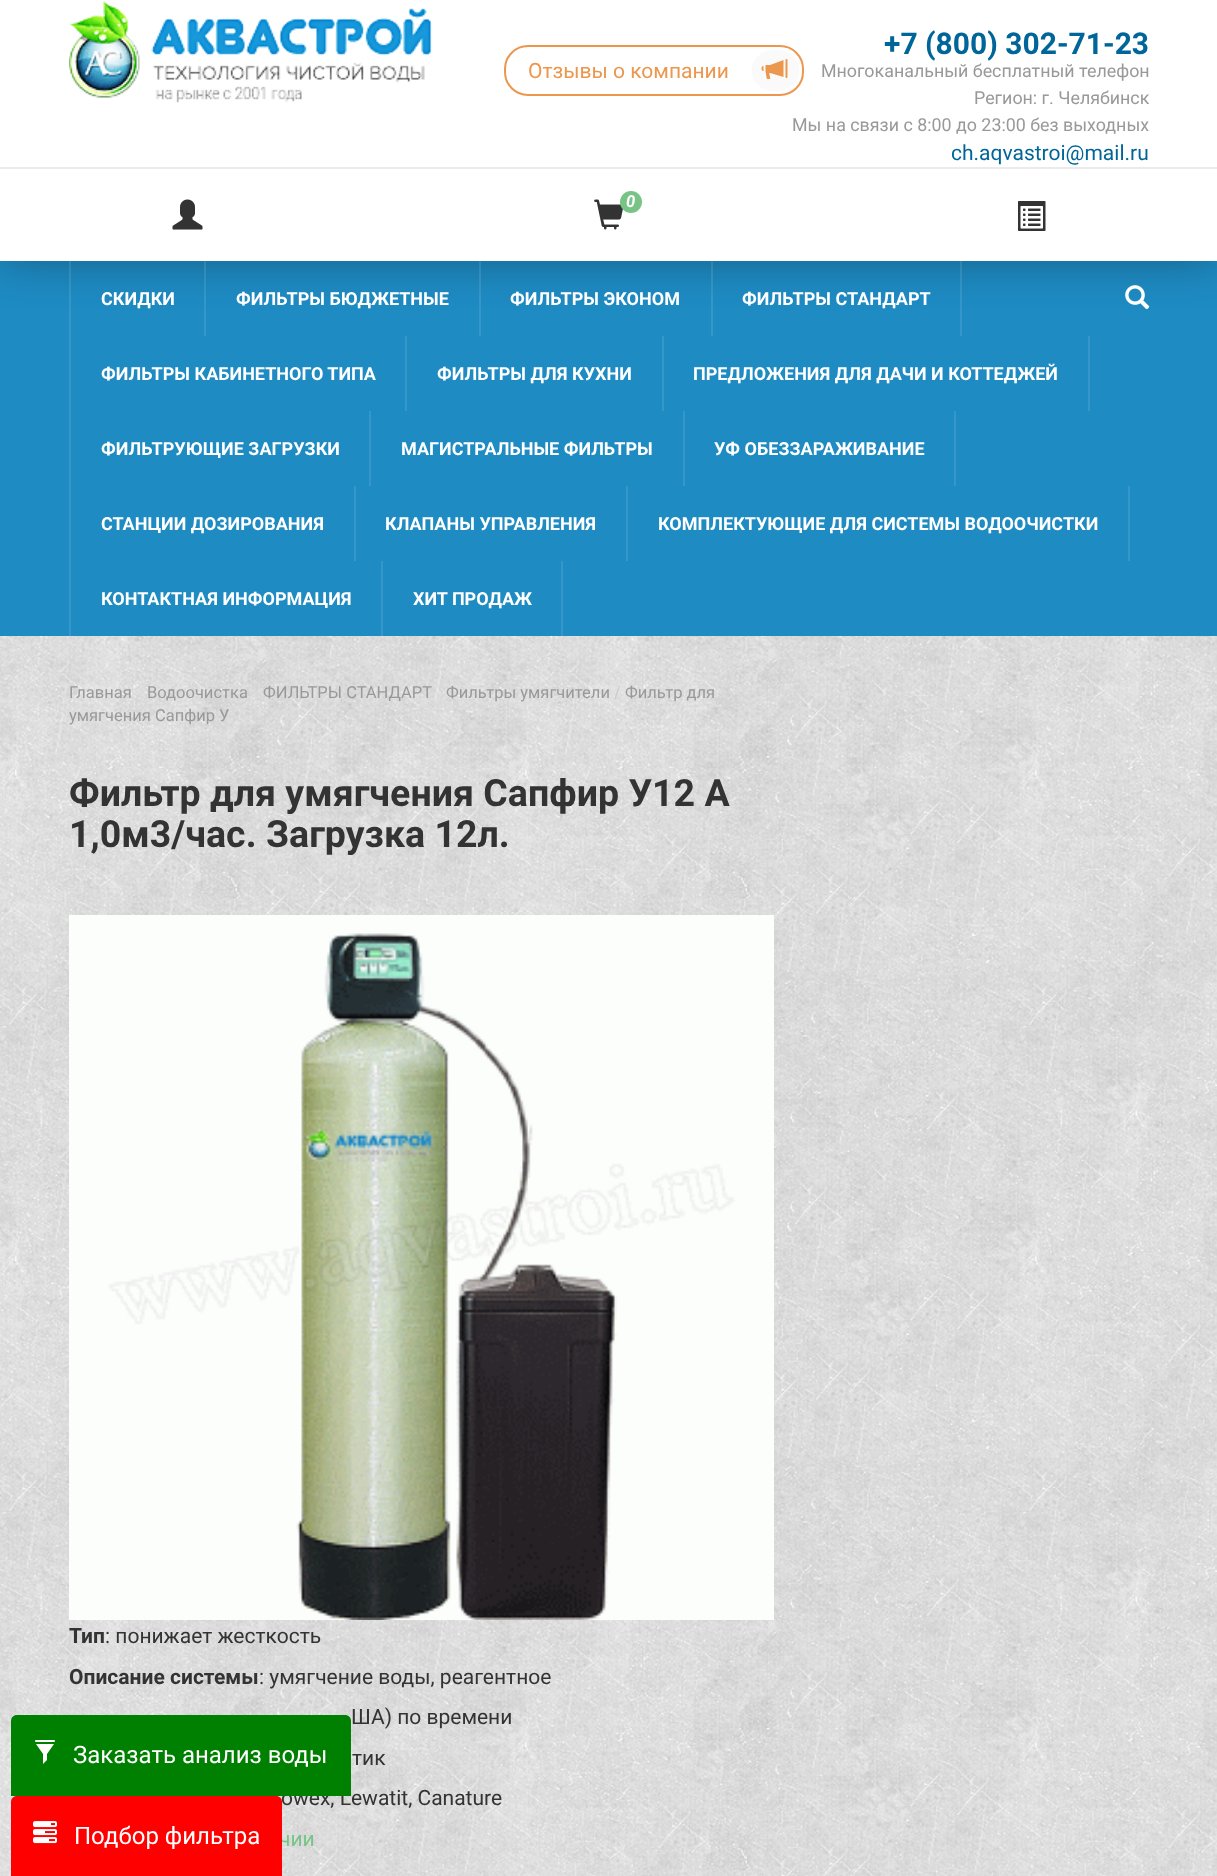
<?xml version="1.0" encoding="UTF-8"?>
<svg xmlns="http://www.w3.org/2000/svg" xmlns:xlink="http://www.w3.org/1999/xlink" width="1217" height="1876">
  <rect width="100%" height="100%" fill="#ffffff" />
  <image x="0" y="636" width="1217" height="1240" xlink:href="image1.png" />
  <rect y="261" width="1217" height="375" fill="#1e8bc3" />
  <rect width="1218" height="261" fill="#000000" fill-opacity="0.3" filter="blur(22.5px)" />
  <rect width="1217" height="261" fill="#ffffff" />
  <rect x="505" y="46" width="298" height="49" rx="23" fill="none" stroke="#eb974e" stroke-width="2" />
  <ellipse cx="775.5" cy="70.5" rx="24" ry="21" fill="#fafafa" />
  <image x="761" y="59" width="27" height="20" xlink:href="image2.png" />
  <image x="69" y="1" width="363" height="102" xlink:href="image3.png" />
  <rect y="167" width="1217" height="2" fill="#ebebeb" />
  <image x="172" y="199" width="31" height="31" xlink:href="image4.png" />
  <image x="594" y="199" width="29" height="31" xlink:href="image5.png" />
  <circle cx="631" cy="202" r="11" fill="#78c486" />
  <image x="1018" y="201" width="28" height="30" xlink:href="image6.png" />
  <rect x="69" y="261" width="2" height="375" fill="#ffffff" fill-opacity="0.1" />
  <rect x="204" y="261" width="2" height="75" fill="#ffffff" fill-opacity="0.1" />
  <rect x="479" y="261" width="2" height="75" fill="#ffffff" fill-opacity="0.1" />
  <rect x="711" y="261" width="2" height="75" fill="#ffffff" fill-opacity="0.1" />
  <rect x="960" y="261" width="2" height="75" fill="#ffffff" fill-opacity="0.1" />
  <rect x="405" y="336" width="2" height="75" fill="#3597c9" />
  <rect x="662" y="336" width="2" height="75" fill="#3597c9" />
  <rect x="1088" y="336" width="2" height="75" fill="#3597c9" />
  <rect x="369" y="411" width="2" height="75" fill="#3597c9" />
  <rect x="683" y="411" width="2" height="75" fill="#3597c9" />
  <rect x="954" y="411" width="2" height="75" fill="#3597c9" />
  <rect x="354" y="486" width="2" height="75" fill="#3597c9" />
  <rect x="626" y="486" width="2" height="75" fill="#3597c9" />
  <rect x="1128" y="486" width="2" height="75" fill="#3597c9" />
  <rect x="381" y="561" width="2" height="75" fill="#3597c9" />
  <rect x="561" y="561" width="2" height="75" fill="#3597c9" />
  <image x="1125" y="285" width="25" height="25" xlink:href="image7.png" />
  <image x="69" y="915" width="705" height="705" xlink:href="image8.png" />
  <text x="528" y="78" style="font-family: Roboto; font-size: 21px; fill: #eb974e">Отзывы о компании</text>
  <text x="884" y="54" style="font-family: Roboto; font-size: 30px; font-weight: bold; fill: #006699">+7 (800) 302-71-23</text>
  <text x="821" y="77" style="font-family: Roboto; font-size: 17.85px; fill: #999999">Многоканальный бесплатный телефон</text>
  <text x="974" y="104" style="font-family: Roboto; font-size: 17.85px; fill: #999999">Регион: г. Челябинск</text>
  <text x="792" y="131" style="font-family: Roboto; font-size: 17.85px; fill: #999999">Мы на связи с 8:00 до 23:00 без выходных</text>
  <text x="951" y="160" style="font-family: Roboto; font-size: 21px; fill: #006699">ch.aqvastroi@mail.ru</text>
  <text x="626" y="207" style="font-family: Roboto; font-size: 16.5px; font-weight: bold; font-style: italic; fill: #ffffff">0</text>
  <text x="101" y="305" style="font-family: Roboto; font-size: 18px; font-weight: bold; fill: #ffffff">СКИДКИ</text>
  <text x="236" y="305" style="font-family: Roboto; font-size: 18px; font-weight: bold; fill: #ffffff">ФИЛЬТРЫ БЮДЖЕТНЫЕ</text>
  <text x="510" y="305" style="font-family: Roboto; font-size: 18px; font-weight: bold; fill: #ffffff">ФИЛЬТРЫ ЭКОНОМ</text>
  <text x="742" y="305" style="font-family: Roboto; font-size: 18px; font-weight: bold; fill: #ffffff">ФИЛЬТРЫ СТАНДАРТ</text>
  <text x="101" y="380" style="font-family: Roboto; font-size: 18px; font-weight: bold; fill: #ffffff">ФИЛЬТРЫ КАБИНЕТНОГО ТИПА</text>
  <text x="437" y="380" style="font-family: Roboto; font-size: 18px; font-weight: bold; fill: #ffffff">ФИЛЬТРЫ ДЛЯ КУХНИ</text>
  <text x="693" y="380" style="font-family: Roboto; font-size: 18px; font-weight: bold; fill: #ffffff">ПРЕДЛОЖЕНИЯ ДЛЯ ДАЧИ И КОТТЕДЖЕЙ</text>
  <text x="101" y="455" style="font-family: Roboto; font-size: 18px; font-weight: bold; fill: #ffffff">ФИЛЬТРУЮЩИЕ ЗАГРУЗКИ</text>
  <text x="401" y="455" style="font-family: Roboto; font-size: 18px; font-weight: bold; fill: #ffffff">МАГИСТРАЛЬНЫЕ ФИЛЬТРЫ</text>
  <text x="714" y="455" style="font-family: Roboto; font-size: 18px; font-weight: bold; fill: #ffffff">УФ ОБЕЗЗАРАЖИВАНИЕ</text>
  <text x="101" y="530" style="font-family: Roboto; font-size: 18px; font-weight: bold; fill: #ffffff">СТАНЦИИ ДОЗИРОВАНИЯ</text>
  <text x="385" y="530" style="font-family: Roboto; font-size: 18px; font-weight: bold; fill: #ffffff">КЛАПАНЫ УПРАВЛЕНИЯ</text>
  <text x="658" y="530" style="font-family: Roboto; font-size: 18px; font-weight: bold; fill: #ffffff">КОМПЛЕКТУЮЩИЕ ДЛЯ СИСТЕМЫ ВОДООЧИСТКИ</text>
  <text x="101" y="605" style="font-family: Roboto; font-size: 18px; font-weight: bold; fill: #ffffff">КОНТАКТНАЯ ИНФОРМАЦИЯ</text>
  <text x="413" y="605" style="font-family: Roboto; font-size: 18px; font-weight: bold; fill: #ffffff">ХИТ ПРОДАЖ</text>
  <text x="69" y="698" style="font-family: Roboto; font-size: 16.5px; fill: #999999">Главная</text>
  <text x="147" y="698" style="font-family: Roboto; font-size: 16.5px; fill: #999999">Водоочистка</text>
  <text x="263" y="698" style="font-family: Roboto; font-size: 16.5px; fill: #999999">ФИЛЬТРЫ СТАНДАРТ</text>
  <text x="446" y="698" style="font-family: Roboto; font-size: 16.5px; fill: #999999">Фильтры умягчители</text>
  <text x="614" y="698" style="font-family: Roboto; font-size: 16.5px; fill: #cccccc">/</text>
  <text x="625" y="698" style="font-family: Roboto; font-size: 16.5px; fill: #999999">Фильтр для</text>
  <text x="69" y="721" style="font-family: Roboto; font-size: 16.5px; fill: #999999">умягчения Сапфир У</text>
  <text x="69" y="806" style="font-family: Roboto; font-size: 37.5px; font-weight: bold; fill: #333333">Фильтр для умягчения Сапфир У12 А</text>
  <text x="69" y="847" style="font-family: Roboto; font-size: 37.5px; font-weight: bold; fill: #333333">1,0м3/час. Загрузка 12л.</text>
  <text x="69" y="1643" style="font-family: Roboto; font-size: 21px; font-weight: bold; fill: #333333">Тип</text>
  <text x="105" y="1643" style="font-family: Roboto; font-size: 21px; fill: #333333">: понижает жесткость</text>
  <text x="69" y="1684" style="font-family: Roboto; font-size: 21px; font-weight: bold; fill: #333333">Описание системы</text>
  <text x="259" y="1684" style="font-family: Roboto; font-size: 21px; fill: #333333">: умягчение воды, реагентное</text>
  <text x="351" y="1724" style="font-family: Roboto; font-size: 21px; fill: #333333">ША) по времени</text>
  <text x="352" y="1765" style="font-family: Roboto; font-size: 21px; fill: #333333">тик</text>
  <text x="281" y="1805" style="font-family: Roboto; font-size: 21px; fill: #333333">owex, Lewatit, Canature</text>
  <text x="279" y="1846" style="font-family: Roboto; font-size: 21px; fill: #78c486">чии</text>
  <path d="M 17 1715 h 328 c 3.5 0 6 2.5 6 6 v 75 h -340 v -75 c 0 -3.5 2.5 -6 6 -6 z" fill="#008000" />
  <image x="35" y="1740" width="20" height="24" xlink:href="image9.png" />
  <text x="73" y="1763" style="font-family: Roboto; font-size: 24px; fill: #ffffff">Заказать анализ воды</text>
  <path d="M 17 1796 h 259 c 3.5 0 6 2.5 6 6 v 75 h -271 v -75 c 0 -3.5 2.5 -6 6 -6 z" fill="#ff0000" />
  <image x="33" y="1821" width="24" height="23" xlink:href="image10.png" />
  <text x="74" y="1844" style="font-family: Roboto; font-size: 24px; fill: #ffffff">Подбор фильтра</text>
</svg>
